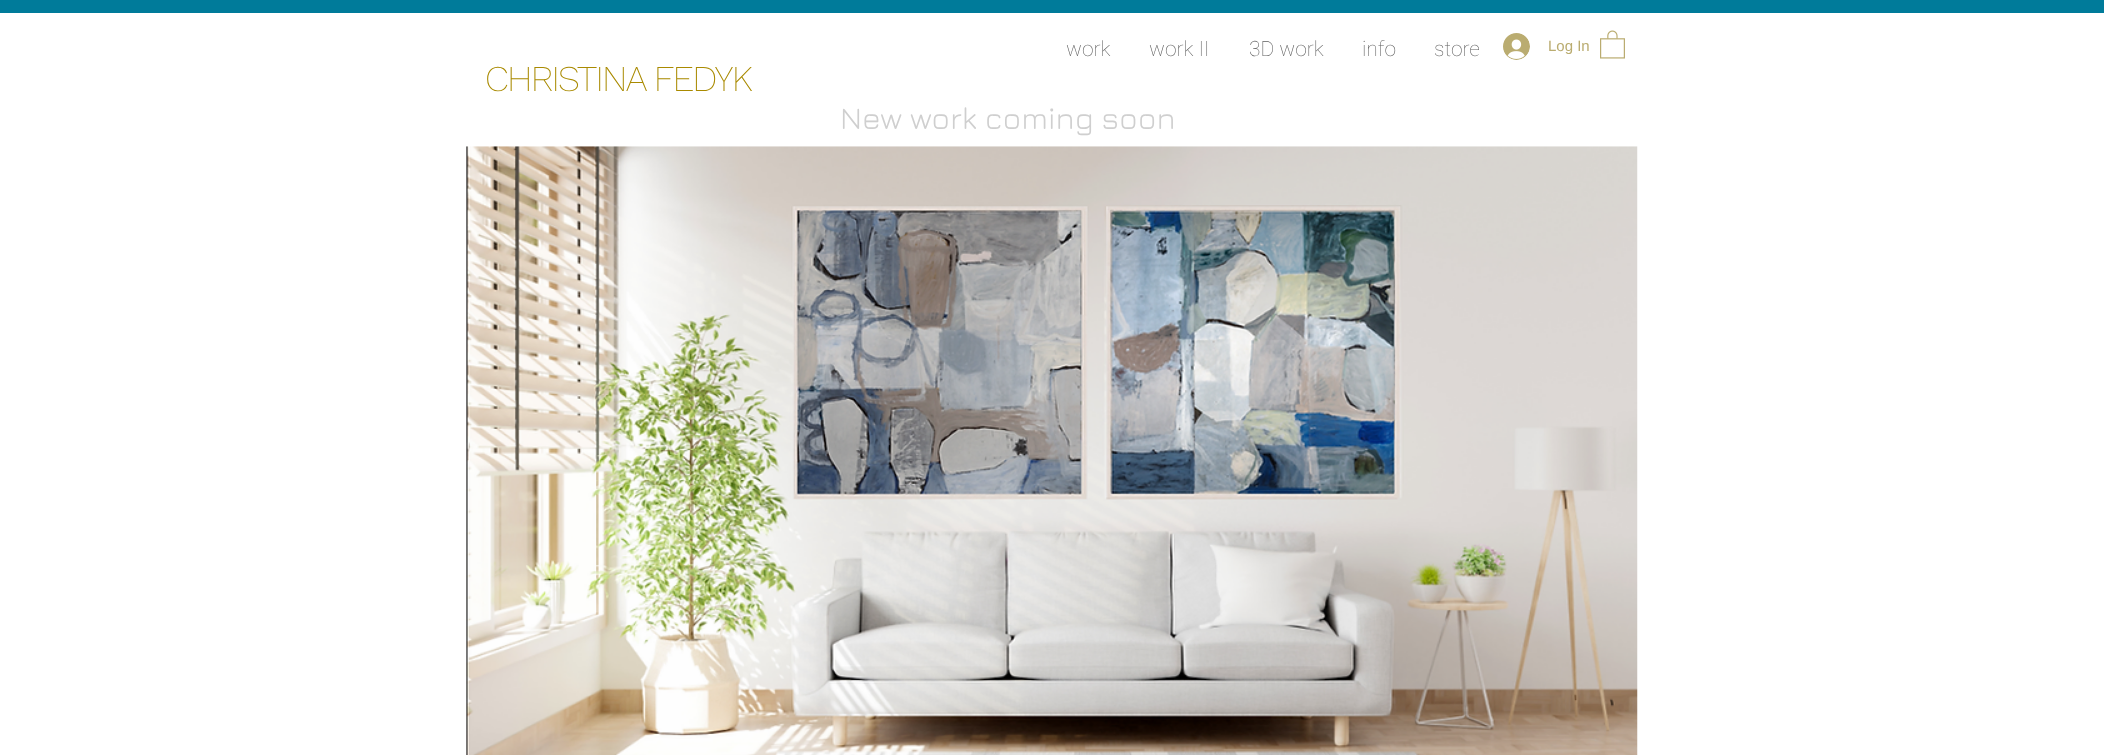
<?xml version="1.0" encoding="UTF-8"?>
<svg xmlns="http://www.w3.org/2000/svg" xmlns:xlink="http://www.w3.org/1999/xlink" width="2104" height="755">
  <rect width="100%" height="100%" fill="#ffffff" />
  <rect width="2104" height="13" fill="#007b9a" />
  <image x="1503" y="33" width="27" height="27" xlink:href="image1.png" />
  <image x="1600" y="30" width="25" height="29" xlink:href="image2.png" />
  <image x="466" y="146" width="1172" height="609" xlink:href="image3.png" />
  <text x="1066" y="56" style="font-family: Roboto; font-size: 21px; font-weight: 100; fill: #606060">work</text>
  <text x="1149" y="56" style="font-family: Roboto; font-size: 21px; font-weight: 100; fill: #606060">work II</text>
  <text x="1249" y="56" style="font-family: Roboto; font-size: 21px; font-weight: 100; fill: #606060">3D work</text>
  <text x="1362" y="56" style="font-family: Roboto; font-size: 21px; font-weight: 100; fill: #606060">info</text>
  <text x="1434" y="56" style="font-family: Roboto; font-size: 21px; font-weight: 100; fill: #606060">store</text>
  <text x="1548" y="51" style="font-family: Liberation Sans; font-size: 15px; fill: #baac70">Log In</text>
  <text x="485" y="91" style="font-family: Work Sans; font-size: 36.25px; font-weight: 200; letter-spacing: -1.75px; fill: #a98a00">CHRISTINA FEDYK</text>
  <text x="840" y="129" style="font-family: Jura; font-size: 31.25px; fill: #cfcfcf">New work coming soon</text>
</svg>
